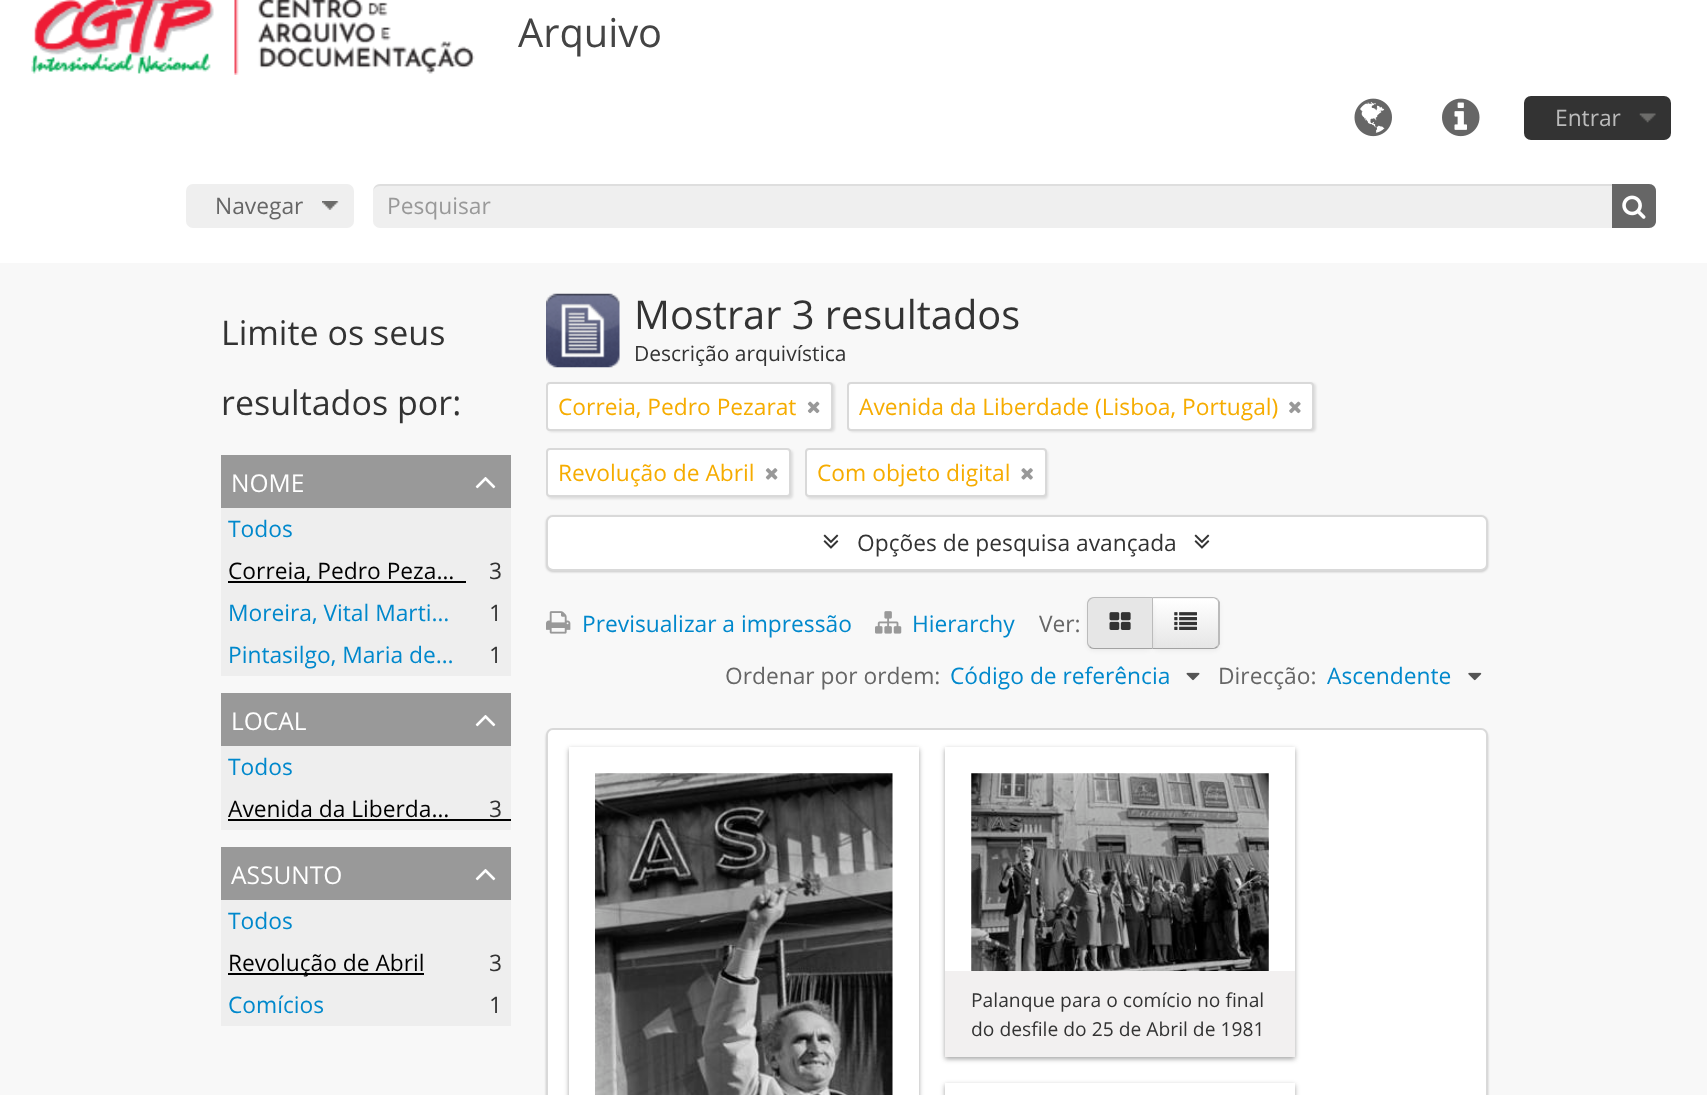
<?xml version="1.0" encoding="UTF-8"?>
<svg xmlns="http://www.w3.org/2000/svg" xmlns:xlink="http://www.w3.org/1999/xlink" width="1707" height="1095">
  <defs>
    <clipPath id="clip1"><path d="M 1152 597 h 61 c 4 0 7 3 7 7 v 38 c 0 4 -3 7 -7 7 h -61 z" /></clipPath>
    <linearGradient id="g1" gradientUnits="userSpaceOnUse" x1="1186" y1="599" x2="1186" y2="648"><stop offset="0" stop-color="#ffffff" /><stop offset="1" stop-color="#e6e6e6" /></linearGradient>
  </defs>
  <rect width="100%" height="100%" fill="#f8f8f8" />
  <rect width="1707" height="263" fill="#ffffff" />
  <image x="31" y="0" width="444" height="75" xlink:href="image1.png" />
  <image x="1354" y="98" width="38" height="39" xlink:href="image2.png" />
  <image x="1442" y="98" width="38" height="39" xlink:href="image3.png" />
  <rect x="1524" y="96" width="147" height="44" rx="7" fill="#333333" />
  <image x="1639" y="113" width="17" height="10" xlink:href="image4.png" />
  <rect x="186" y="184" width="168" height="44" rx="7" fill="#efefef" />
  <image x="322" y="201" width="17" height="9" xlink:href="image5.png" />
  <rect x="373" y="184" width="1283" height="44" rx="7" fill="#efefef" />
  <path d="M 380 186 h 1268 c 4 0 8 3 8 6 c 0 -4 -2 -8 -7 -8 h -1269 c -5 0 -7 4 -7 8 c 0 -3 3 -6 7 -6 z" fill="#000000" fill-opacity="0.07" />
  <path d="M 1612 184 h 37 c 4 0 7 3 7 7 v 30 c 0 4 -3 7 -7 7 h -37 z" fill="#666666" />
  <image x="1622" y="195" width="24" height="24" xlink:href="image6.png" />
  <rect x="221" y="455" width="290" height="53" fill="#999999" />
  <image x="475" y="477" width="21" height="12" xlink:href="image7.png" />
  <rect x="221" y="508" width="290" height="168" fill="#eeeeee" />
  <rect x="228" y="581" width="238" height="2" fill="#000000" />
  <rect x="221" y="693" width="290" height="53" fill="#999999" />
  <image x="475" y="715" width="21" height="12" xlink:href="image7.png" />
  <rect x="221" y="746" width="290" height="84" fill="#eeeeee" />
  <rect x="228" y="819" width="283" height="2" fill="#000000" />
  <rect x="221" y="847" width="290" height="53" fill="#999999" />
  <image x="475" y="869" width="21" height="12" xlink:href="image7.png" />
  <rect x="221" y="900" width="290" height="126" fill="#eeeeee" />
  <rect x="228" y="973" width="196" height="2" fill="#000000" />
  <image x="546" y="293" width="74" height="75" xlink:href="image8.png" />
  <rect x="548" y="383" width="287" height="49" rx="4" fill="#000000" fill-opacity="0.1" filter="blur(1px)" />
  <rect x="547" y="383" width="285" height="47" rx="3" fill="#ffffff" stroke="#d9d9d9" stroke-width="2" />
  <image x="807" y="401" width="13" height="13" xlink:href="image9.png" />
  <rect x="849" y="383" width="467" height="49" rx="4" fill="#000000" fill-opacity="0.1" filter="blur(1px)" />
  <rect x="848" y="383" width="465" height="47" rx="3" fill="#ffffff" stroke="#d9d9d9" stroke-width="2" />
  <image x="1289" y="401" width="12" height="13" xlink:href="image10.png" />
  <rect x="548" y="450" width="245" height="49" rx="4" fill="#000000" fill-opacity="0.1" filter="blur(1px)" />
  <rect x="547" y="449" width="243" height="47" rx="3" fill="#ffffff" stroke="#d9d9d9" stroke-width="2" />
  <image x="765" y="468" width="13" height="12" xlink:href="image11.png" />
  <rect x="807" y="450" width="241" height="49" rx="4" fill="#000000" fill-opacity="0.1" filter="blur(1px)" />
  <rect x="806" y="449" width="240" height="47" rx="3" fill="#ffffff" stroke="#d9d9d9" stroke-width="2" />
  <image x="1021" y="468" width="12" height="12" xlink:href="image12.png" />
  <rect x="546" y="516" width="942" height="56" rx="7" fill="#000000" fill-opacity="0.2" filter="blur(1px)" />
  <rect x="547" y="516" width="940" height="54" rx="6" fill="#ffffff" stroke="#d9d9d9" stroke-width="2" />
  <image x="823" y="534" width="16" height="15" xlink:href="image13.png" />
  <image x="1194" y="534" width="16" height="15" xlink:href="image13.png" />
  <image x="546" y="611" width="25" height="23" xlink:href="image14.png" />
  <image x="875" y="611" width="27" height="23" xlink:href="image15.png" />
  <rect x="1152" y="599" width="68" height="52" rx="7" fill="#000000" fill-opacity="0.05" filter="blur(2px)" />
  <path d="M 1152 597 h 61 c 4 0 7 3 7 7 v 38 c 0 4 -3 7 -7 7 h -61 z" fill="#f5f5f5" />
  <g clip-path="url(#clip1)">
    <rect x="1153" y="599" width="67" height="49" fill="url(#g1)" />
  </g>
  <path d="M 1152 597 l 1 1 h 61 l 3 2 l 1 -1 c -1 -1 -3 -2 -5 -2 z" fill="#bbbbbb" />
  <path d="M 1218 599 l 2 3 v 42 l -2 3 l -1 -1 c 1 -1 1 -2 1 -4 v -38 c 0 -2 0 -3 -1 -4 z" fill="#bbbbbb" />
  <path d="M 1218 647 c -1 1 -3 2 -5 2 h -61 l 1 -1 h 61 l 3 -2 z" fill="#a2a2a2" />
  <rect x="1087" y="599" width="66" height="52" rx="7" fill="#000000" fill-opacity="0.05" filter="blur(2px)" />
  <path d="M 1094 597 h 59 v 52 h -59 c -4 0 -7 -3 -7 -7 v -38 c 0 -4 3 -7 7 -7 z" fill="#e6e6e6" />
  <path d="M 1094 597 c -2 0 -4 1 -5 2 l 1 1 c 1 -1 2 -2 4 -2 h 58 l 1 -1 z" fill="#bbbbbb" />
  <path d="M 1153 649 v -52 l -1 1 v 50 z" fill="#bbbbbb" />
  <path d="M 1153 649 l -1 -1 h -58 c -2 0 -3 -1 -4 -2 l -1 1 c 1 1 3 2 5 2 z" fill="#a2a2a2" />
  <path d="M 1089 599 c -1 1 -2 3 -2 5 v 38 c 0 2 1 4 2 5 l 1 -1 c -1 -1 -2 -2 -2 -4 v -38 c 0 -2 1 -3 2 -4 z" fill="#bbbbbb" />
  <image x="1109" y="612" width="22" height="18" xlink:href="image16.png" />
  <image x="1174" y="612" width="23" height="18" xlink:href="image17.png" />
  <image x="1186" y="672" width="14" height="9" xlink:href="image18.png" />
  <image x="1468" y="672" width="14" height="9" xlink:href="image19.png" />
  <rect x="546" y="730" width="942" height="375" rx="7" fill="#000000" fill-opacity="0.2" filter="blur(1px)" />
  <rect x="547" y="729" width="940" height="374" rx="6" fill="#ffffff" stroke="#d9d9d9" stroke-width="2" />
  <rect x="569" y="749" width="350" height="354" fill="#191919" fill-opacity="0.4" filter="blur(2.5px)" />
  <rect x="569" y="747" width="350" height="348" fill="#ffffff" />
  <image x="595" y="773" width="298" height="322" xlink:href="image20.png" />
  <rect x="945" y="749" width="350" height="310" fill="#191919" fill-opacity="0.4" filter="blur(2.5px)" />
  <rect x="945" y="747" width="350" height="224" fill="#ffffff" />
  <image x="971" y="773" width="298" height="198" xlink:href="image21.png" />
  <rect x="945" y="971" width="350" height="86" fill="#f2f0f0" />
  <rect x="945" y="1085" width="350" height="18" fill="#191919" fill-opacity="0.4" filter="blur(2.5px)" />
  <rect x="945" y="1083" width="350" height="12" fill="#ffffff" />
  <text x="518" y="47" style="font-family: Open Sans; font-size: 39.75px; fill: #444444">Arquivo</text>
  <text x="1555" y="126" style="font-family: Open Sans; font-size: 22.75px; fill: #bbbbbb">Entrar</text>
  <text x="215" y="214" style="font-family: Open Sans; font-size: 22.75px; fill: #666666">Navegar</text>
  <text x="387" y="214" style="font-family: Open Sans; font-size: 22.75px; fill: #999999">Pesquisar</text>
  <text x="221" y="345" style="font-family: Open Sans; font-size: 34px; fill: #333333">Limite os seus</text>
  <text x="221" y="415" style="font-family: Open Sans; font-size: 34px; fill: #333333">resultados por:</text>
  <text x="231" y="492" style="font-family: Open Sans; font-size: 24.5px; fill: #ffffff">NOME</text>
  <text x="228" y="537" style="font-family: Open Sans; font-size: 22.75px; fill: #0088cc">Todos</text>
  <text x="228" y="579" style="font-family: Open Sans; font-size: 22.75px; fill: #000000">Correia, Pedro Peza…</text>
  <text x="489" y="579" style="font-family: Open Sans; font-size: 22.75px; fill: #333333">3</text>
  <text x="228" y="621" style="font-family: Open Sans; font-size: 22.75px; fill: #0088cc">Moreira, Vital Marti…</text>
  <text x="489" y="621" style="font-family: Open Sans; font-size: 22.75px; fill: #333333">1</text>
  <text x="228" y="663" style="font-family: Open Sans; font-size: 22.75px; fill: #0088cc">Pintasilgo, Maria de…</text>
  <text x="489" y="663" style="font-family: Open Sans; font-size: 22.75px; fill: #333333">1</text>
  <text x="231" y="730" style="font-family: Open Sans; font-size: 24.5px; fill: #ffffff">LOCAL</text>
  <text x="228" y="775" style="font-family: Open Sans; font-size: 22.75px; fill: #0088cc">Todos</text>
  <text x="228" y="817" style="font-family: Open Sans; font-size: 22.75px; fill: #000000">Avenida da Liberda…</text>
  <text x="489" y="817" style="font-family: Open Sans; font-size: 22.75px; fill: #333333">3</text>
  <text x="231" y="884" style="font-family: Open Sans; font-size: 24.5px; fill: #ffffff">ASSUNTO</text>
  <text x="228" y="929" style="font-family: Open Sans; font-size: 22.75px; fill: #0088cc">Todos</text>
  <text x="228" y="971" style="font-family: Open Sans; font-size: 22.75px; fill: #000000">Revolução de Abril</text>
  <text x="489" y="971" style="font-family: Open Sans; font-size: 22.75px; fill: #333333">3</text>
  <text x="228" y="1013" style="font-family: Open Sans; font-size: 22.75px; fill: #0088cc">Comícios</text>
  <text x="489" y="1013" style="font-family: Open Sans; font-size: 22.75px; fill: #333333">1</text>
  <text x="634" y="329" style="font-family: Open Sans; font-size: 39.75px; fill: #333333">Mostrar 3 resultados</text>
  <text x="634" y="361" style="font-family: Open Sans; font-size: 21px; fill: #333333">Descrição arquivística</text>
  <text x="558" y="415" style="font-family: Open Sans; font-size: 22.75px; fill: #f6ac00">Correia, Pedro Pezarat</text>
  <text x="859" y="415" style="font-family: Open Sans; font-size: 22.75px; fill: #f6ac00">Avenida da Liberdade (Lisboa, Portugal)</text>
  <text x="558" y="481" style="font-family: Open Sans; font-size: 22.75px; fill: #f6ac00">Revolução de Abril</text>
  <text x="817" y="481" style="font-family: Open Sans; font-size: 22.75px; fill: #f6ac00">Com objeto digital</text>
  <text x="857" y="551" style="font-family: Open Sans; font-size: 22.75px; fill: #333333">Opções de pesquisa avançada</text>
  <text x="582" y="632" style="font-family: Open Sans; font-size: 22.75px; fill: #0088cc">Previsualizar a impressão</text>
  <text x="912" y="632" style="font-family: Open Sans; font-size: 22.75px; fill: #0088cc">Hierarchy</text>
  <text x="1039" y="632" style="font-family: Open Sans; font-size: 22.75px; fill: #666666">Ver:</text>
  <text x="725" y="684" style="font-family: Open Sans; font-size: 22.75px; fill: #666666">Ordenar por ordem:</text>
  <text x="950" y="684" style="font-family: Open Sans; font-size: 22.75px; fill: #0088cc">Código de referência</text>
  <text x="1218" y="684" style="font-family: Open Sans; font-size: 22.75px; fill: #666666">Direcção:</text>
  <text x="1327" y="684" style="font-family: Open Sans; font-size: 22.75px; fill: #0088cc">Ascendente</text>
  <text x="971" y="1007" style="font-family: Open Sans; font-size: 19.25px; fill: #333333">Palanque para o comício no final</text>
  <text x="971" y="1036" style="font-family: Open Sans; font-size: 19.25px; fill: #333333">do desfile do 25 de Abril de 1981</text>
</svg>
